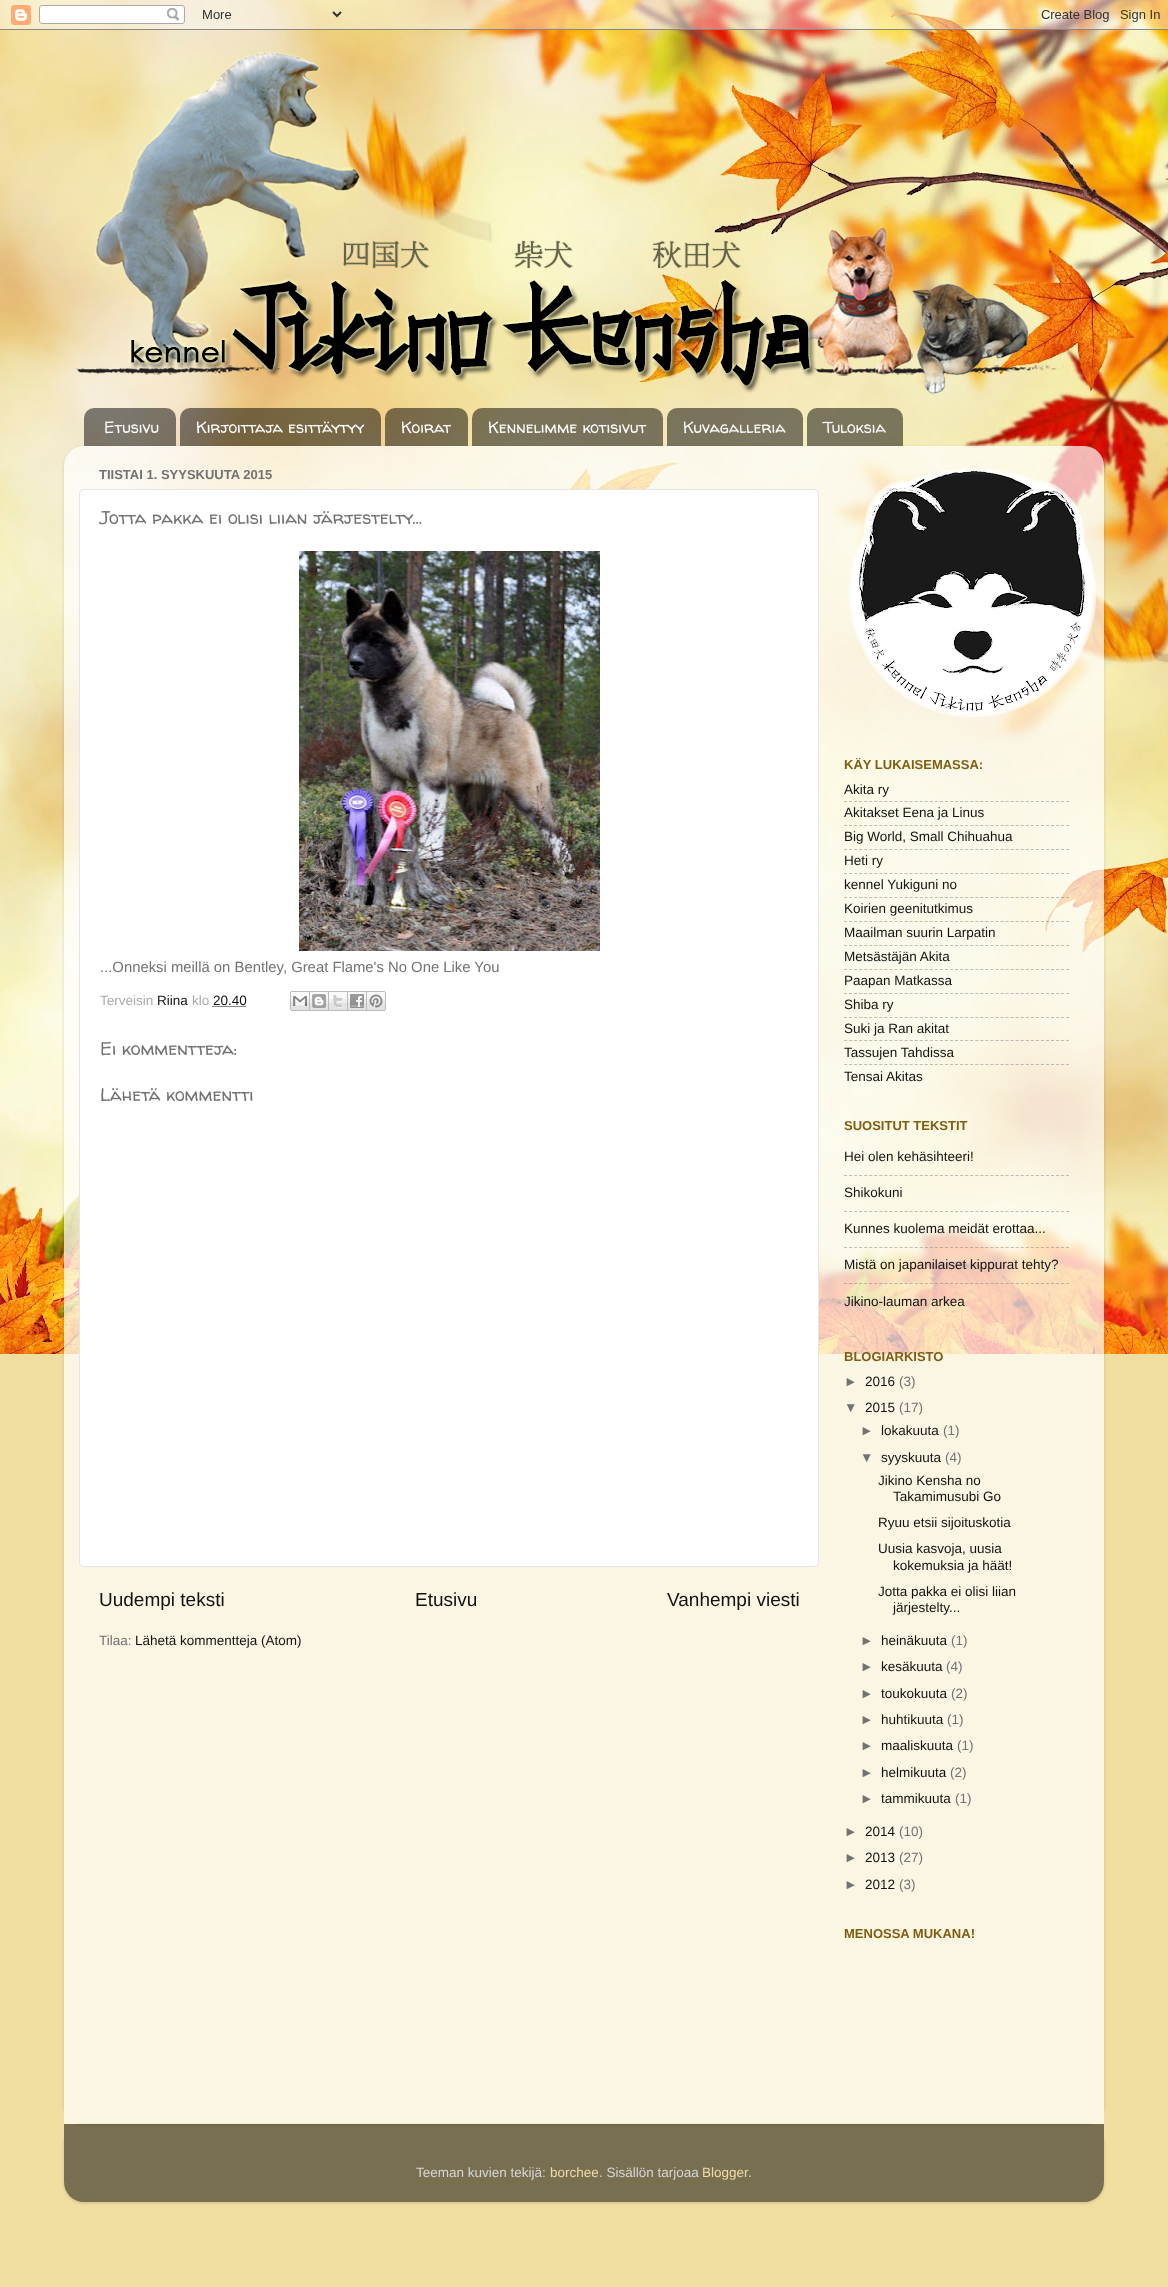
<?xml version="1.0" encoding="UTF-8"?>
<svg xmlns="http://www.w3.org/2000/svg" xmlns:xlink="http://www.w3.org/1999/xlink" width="1168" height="2287">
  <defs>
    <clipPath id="clip1"><path d="M 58 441 h 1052 v 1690 h -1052 z m 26 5 h 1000 c 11 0 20 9 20 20 v 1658 h -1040 v -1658 c 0 -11 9 -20 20 -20 z" clip-rule="evenodd" /></clipPath>
    <clipPath id="clip2"><path d="M 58 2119 h 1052 v 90 h -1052 z m 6 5 h 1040 v 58 c 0 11 -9 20 -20 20 h -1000 c -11 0 -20 -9 -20 -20 z" clip-rule="evenodd" /></clipPath>
  </defs>
  <rect width="100%" height="100%" fill="#f0dea0" />
  <image x="0" y="0" width="1168" height="1354" xlink:href="image1.png" />
  <image x="0" y="0" width="1168" height="30" xlink:href="image2.png" />
  <image x="76" y="51" width="988" height="343" xlink:href="image3.png" />
  <image x="84" y="408" width="92" height="38" xlink:href="image4.png" />
  <image x="180" y="408" width="201" height="38" xlink:href="image5.png" />
  <image x="385" y="408" width="83" height="38" xlink:href="image6.png" />
  <image x="472" y="408" width="191" height="38" xlink:href="image7.png" />
  <image x="667" y="408" width="136" height="38" xlink:href="image8.png" />
  <image x="807" y="408" width="96" height="38" xlink:href="image9.png" />
  <g clip-path="url(#clip1)">
    <rect x="64" y="447" width="1040" height="1678" rx="20" fill="#000000" fill-opacity="0.15" filter="blur(1.5px)" />
  </g>
  <image x="64" y="446" width="1040" height="1678" xlink:href="image10.png" />
  <rect x="79.5" y="489.5" width="739" height="1077" rx="4.5" fill="#ffffff" stroke="#e5e5e5" />
  <image x="299" y="551" width="301" height="400" xlink:href="image11.png" />
  <path d="M 212.5 1006.5 h 34" fill="none" stroke="#131312" stroke-dasharray="1 1" />
  <image x="290" y="991" width="20" height="20" xlink:href="image12.png" />
  <image x="310" y="991" width="19" height="20" xlink:href="image13.png" />
  <image x="329" y="991" width="19" height="20" xlink:href="image14.png" />
  <image x="348" y="991" width="19" height="20" xlink:href="image15.png" />
  <image x="367" y="991" width="19" height="20" xlink:href="image16.png" />
  <image x="849" y="468" width="247" height="249" xlink:href="image17.png" />
  <path d="M 844 801.5 h 225" fill="none" stroke="#808080" stroke-opacity="0.5" stroke-dasharray="3 2.05" />
  <path d="M 844 825.5 h 225" fill="none" stroke="#808080" stroke-opacity="0.5" stroke-dasharray="3 2.05" />
  <path d="M 844 849.5 h 225" fill="none" stroke="#808080" stroke-opacity="0.5" stroke-dasharray="3 2.05" />
  <path d="M 844 873.5 h 225" fill="none" stroke="#808080" stroke-opacity="0.5" stroke-dasharray="3 2.05" />
  <path d="M 844 897.5 h 225" fill="none" stroke="#808080" stroke-opacity="0.5" stroke-dasharray="3 2.05" />
  <path d="M 844 921.5 h 225" fill="none" stroke="#808080" stroke-opacity="0.5" stroke-dasharray="3 2.05" />
  <path d="M 844 945.5 h 225" fill="none" stroke="#808080" stroke-opacity="0.5" stroke-dasharray="3 2.05" />
  <path d="M 844 969.5 h 225" fill="none" stroke="#808080" stroke-opacity="0.5" stroke-dasharray="3 2.05" />
  <path d="M 844 993.5 h 225" fill="none" stroke="#808080" stroke-opacity="0.5" stroke-dasharray="3 2.05" />
  <path d="M 844 1017.5 h 225" fill="none" stroke="#808080" stroke-opacity="0.5" stroke-dasharray="3 2.05" />
  <path d="M 844 1040.5 h 225" fill="none" stroke="#808080" stroke-opacity="0.5" stroke-dasharray="3 2.05" />
  <path d="M 844 1064.5 h 225" fill="none" stroke="#808080" stroke-opacity="0.5" stroke-dasharray="3 2.05" />
  <path d="M 844 1175.5 h 225" fill="none" stroke="#808080" stroke-opacity="0.5" stroke-dasharray="3 2.05" />
  <path d="M 844 1211.5 h 225" fill="none" stroke="#808080" stroke-opacity="0.5" stroke-dasharray="3 2.05" />
  <path d="M 844 1247.5 h 225" fill="none" stroke="#808080" stroke-opacity="0.5" stroke-dasharray="3 2.05" />
  <path d="M 844 1283.5 h 225" fill="none" stroke="#808080" stroke-opacity="0.5" stroke-dasharray="3 2.05" />
  <g clip-path="url(#clip2)">
    <rect x="64" y="2125" width="1040" height="78" rx="20" fill="#000000" fill-opacity="0.15" filter="blur(1.5px)" />
  </g>
  <image x="64" y="2124" width="1040" height="78" xlink:href="image18.png" />
  <text x="104" y="433" style="font-family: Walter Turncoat; font-size: 16px; fill: #ffffff">Etusivu</text>
  <text x="196" y="433" style="font-family: Walter Turncoat; font-size: 16px; fill: #ffffff">Kirjoittaja esittäytyy</text>
  <text x="401" y="433" style="font-family: Walter Turncoat; font-size: 16px; fill: #ffffff">Koirat</text>
  <text x="488" y="433" style="font-family: Walter Turncoat; font-size: 16px; fill: #ffffff">Kennelimme kotisivut</text>
  <text x="683" y="433" style="font-family: Walter Turncoat; font-size: 16px; fill: #ffffff">Kuvagalleria</text>
  <text x="823" y="433" style="font-family: Walter Turncoat; font-size: 16px; fill: #ffffff">Tuloksia</text>
  <text x="99" y="479" style="font-family: Liberation Sans; font-size: 13px; font-weight: bold; fill: #727272">TIISTAI 1. SYYSKUUTA 2015</text>
  <text x="100" y="524" style="font-family: Walter Turncoat; font-size: 18px; fill: #727272">Jotta pakka ei olisi liian järjestelty...</text>
  <text x="100" y="972" style="font-family: Liberation Sans; font-size: 14.85px; fill: #727272">...Onneksi meillä on Bentley, Great Flame's No One Like You</text>
  <text x="100" y="1005" style="font-family: Liberation Sans; font-size: 13.5px; fill: #aaaaaa">Terveisin</text>
  <text x="157" y="1005" style="font-family: Liberation Sans; font-size: 13.5px; fill: #131312">Riina</text>
  <text x="192" y="1005" style="font-family: Liberation Sans; font-size: 13.5px; fill: #aaaaaa">klo</text>
  <text x="213" y="1005" style="font-family: Liberation Sans; font-size: 13.5px; fill: #131312">20.40</text>
  <text x="100" y="1055" style="font-family: Walter Turncoat; font-size: 18px; fill: #727272">Ei kommentteja:</text>
  <text x="100" y="1101" style="font-family: Walter Turncoat; font-size: 18px; fill: #727272">Lähetä kommentti</text>
  <text x="99" y="1606" style="font-family: Liberation Sans; font-size: 19px; fill: #131312">Uudempi teksti</text>
  <text x="415" y="1606" style="font-family: Liberation Sans; font-size: 19px; fill: #131312">Etusivu</text>
  <text x="667" y="1606" style="font-family: Liberation Sans; font-size: 19px; fill: #131312">Vanhempi viesti</text>
  <text x="99" y="1645" style="font-family: Liberation Sans; font-size: 13.5px; fill: #727272">Tilaa:</text>
  <text x="135" y="1645" style="font-family: Liberation Sans; font-size: 13.5px; fill: #131312">Lähetä kommentteja (Atom)</text>
  <text x="844" y="769" style="font-family: Liberation Sans; font-size: 13px; font-weight: bold; fill: #815e11">KÄY LUKAISEMASSA:</text>
  <text x="844" y="794" style="font-family: Liberation Sans; font-size: 13.5px; fill: #131312">Akita ry</text>
  <text x="844" y="817" style="font-family: Liberation Sans; font-size: 13.5px; fill: #131312">Akitakset Eena ja Linus</text>
  <text x="844" y="841" style="font-family: Liberation Sans; font-size: 13.5px; fill: #131312">Big World, Small Chihuahua</text>
  <text x="844" y="865" style="font-family: Liberation Sans; font-size: 13.5px; fill: #131312">Heti ry</text>
  <text x="844" y="889" style="font-family: Liberation Sans; font-size: 13.5px; fill: #131312">kennel Yukiguni no</text>
  <text x="844" y="913" style="font-family: Liberation Sans; font-size: 13.5px; fill: #131312">Koirien geenitutkimus</text>
  <text x="844" y="937" style="font-family: Liberation Sans; font-size: 13.5px; fill: #131312">Maailman suurin Larpatin</text>
  <text x="844" y="961" style="font-family: Liberation Sans; font-size: 13.5px; fill: #131312">Metsästäjän Akita</text>
  <text x="844" y="985" style="font-family: Liberation Sans; font-size: 13.5px; fill: #131312">Paapan Matkassa</text>
  <text x="844" y="1009" style="font-family: Liberation Sans; font-size: 13.5px; fill: #131312">Shiba ry</text>
  <text x="844" y="1033" style="font-family: Liberation Sans; font-size: 13.5px; fill: #131312">Suki ja Ran akitat</text>
  <text x="844" y="1057" style="font-family: Liberation Sans; font-size: 13.5px; fill: #131312">Tassujen Tahdissa</text>
  <text x="844" y="1081" style="font-family: Liberation Sans; font-size: 13.5px; fill: #131312">Tensai Akitas</text>
  <text x="844" y="1130" style="font-family: Liberation Sans; font-size: 13px; font-weight: bold; fill: #815e11">SUOSITUT TEKSTIT</text>
  <text x="844" y="1161" style="font-family: Liberation Sans; font-size: 13.5px; fill: #131312">Hei olen kehäsihteeri!</text>
  <text x="844" y="1197" style="font-family: Liberation Sans; font-size: 13.5px; fill: #131312">Shikokuni</text>
  <text x="844" y="1233" style="font-family: Liberation Sans; font-size: 13.5px; fill: #131312">Kunnes kuolema meidät erottaa...</text>
  <text x="844" y="1269" style="font-family: Liberation Sans; font-size: 13.5px; fill: #131312">Mistä on japanilaiset kippurat tehty?</text>
  <text x="844" y="1306" style="font-family: Liberation Sans; font-size: 13.5px; fill: #131312">Jikino-lauman arkea</text>
  <text x="844" y="1361" style="font-family: Liberation Sans; font-size: 13px; font-weight: bold; fill: #815e11">BLOGIARKISTO</text>
  <text x="844" y="1386" style="font-family: Liberation Sans; font-size: 13.5px; fill: #727272">►</text>
  <text x="865" y="1386" style="font-family: Liberation Sans; font-size: 13.5px; fill: #131312">2016</text>
  <text x="899" y="1386" style="font-family: Liberation Sans; font-size: 13.5px; fill: #727272">(3)</text>
  <text x="844" y="1412" style="font-family: Liberation Sans; font-size: 13.5px; fill: #727272">▼</text>
  <text x="865" y="1412" style="font-family: Liberation Sans; font-size: 13.5px; fill: #131312">2015</text>
  <text x="899" y="1412" style="font-family: Liberation Sans; font-size: 13.5px; fill: #727272">(17)</text>
  <text x="860" y="1435" style="font-family: Liberation Sans; font-size: 13.5px; fill: #727272">►</text>
  <text x="881" y="1435" style="font-family: Liberation Sans; font-size: 13.5px; fill: #131312">lokakuuta</text>
  <text x="943" y="1435" style="font-family: Liberation Sans; font-size: 13.5px; fill: #727272">(1)</text>
  <text x="860" y="1462" style="font-family: Liberation Sans; font-size: 13.5px; fill: #727272">▼</text>
  <text x="881" y="1462" style="font-family: Liberation Sans; font-size: 13.5px; fill: #131312">syyskuuta</text>
  <text x="945" y="1462" style="font-family: Liberation Sans; font-size: 13.5px; fill: #727272">(4)</text>
  <text x="878" y="1485" style="font-family: Liberation Sans; font-size: 13.5px; fill: #131312">Jikino Kensha no</text>
  <text x="893" y="1501" style="font-family: Liberation Sans; font-size: 13.5px; fill: #131312">Takamimusubi Go</text>
  <text x="878" y="1527" style="font-family: Liberation Sans; font-size: 13.5px; fill: #131312">Ryuu etsii sijoituskotia</text>
  <text x="878" y="1553" style="font-family: Liberation Sans; font-size: 13.5px; fill: #131312">Uusia kasvoja, uusia</text>
  <text x="893" y="1570" style="font-family: Liberation Sans; font-size: 13.5px; fill: #131312">kokemuksia ja häät!</text>
  <text x="878" y="1596" style="font-family: Liberation Sans; font-size: 13.5px; fill: #131312">Jotta pakka ei olisi liian</text>
  <text x="893" y="1612" style="font-family: Liberation Sans; font-size: 13.5px; fill: #131312">järjestelty...</text>
  <text x="860" y="1645" style="font-family: Liberation Sans; font-size: 13.5px; fill: #727272">►</text>
  <text x="881" y="1645" style="font-family: Liberation Sans; font-size: 13.5px; fill: #131312">heinäkuuta</text>
  <text x="951" y="1645" style="font-family: Liberation Sans; font-size: 13.5px; fill: #727272">(1)</text>
  <text x="860" y="1671" style="font-family: Liberation Sans; font-size: 13.5px; fill: #727272">►</text>
  <text x="881" y="1671" style="font-family: Liberation Sans; font-size: 13.5px; fill: #131312">kesäkuuta</text>
  <text x="946" y="1671" style="font-family: Liberation Sans; font-size: 13.5px; fill: #727272">(4)</text>
  <text x="860" y="1698" style="font-family: Liberation Sans; font-size: 13.5px; fill: #727272">►</text>
  <text x="881" y="1698" style="font-family: Liberation Sans; font-size: 13.5px; fill: #131312">toukokuuta</text>
  <text x="951" y="1698" style="font-family: Liberation Sans; font-size: 13.5px; fill: #727272">(2)</text>
  <text x="860" y="1724" style="font-family: Liberation Sans; font-size: 13.5px; fill: #727272">►</text>
  <text x="881" y="1724" style="font-family: Liberation Sans; font-size: 13.5px; fill: #131312">huhtikuuta</text>
  <text x="947" y="1724" style="font-family: Liberation Sans; font-size: 13.5px; fill: #727272">(1)</text>
  <text x="860" y="1750" style="font-family: Liberation Sans; font-size: 13.5px; fill: #727272">►</text>
  <text x="881" y="1750" style="font-family: Liberation Sans; font-size: 13.5px; fill: #131312">maaliskuuta</text>
  <text x="957" y="1750" style="font-family: Liberation Sans; font-size: 13.5px; fill: #727272">(1)</text>
  <text x="860" y="1777" style="font-family: Liberation Sans; font-size: 13.5px; fill: #727272">►</text>
  <text x="881" y="1777" style="font-family: Liberation Sans; font-size: 13.5px; fill: #131312">helmikuuta</text>
  <text x="950" y="1777" style="font-family: Liberation Sans; font-size: 13.5px; fill: #727272">(2)</text>
  <text x="860" y="1803" style="font-family: Liberation Sans; font-size: 13.5px; fill: #727272">►</text>
  <text x="881" y="1803" style="font-family: Liberation Sans; font-size: 13.5px; fill: #131312">tammikuuta</text>
  <text x="955" y="1803" style="font-family: Liberation Sans; font-size: 13.5px; fill: #727272">(1)</text>
  <text x="844" y="1836" style="font-family: Liberation Sans; font-size: 13.5px; fill: #727272">►</text>
  <text x="865" y="1836" style="font-family: Liberation Sans; font-size: 13.5px; fill: #131312">2014</text>
  <text x="899" y="1836" style="font-family: Liberation Sans; font-size: 13.5px; fill: #727272">(10)</text>
  <text x="844" y="1862" style="font-family: Liberation Sans; font-size: 13.5px; fill: #727272">►</text>
  <text x="865" y="1862" style="font-family: Liberation Sans; font-size: 13.5px; fill: #131312">2013</text>
  <text x="899" y="1862" style="font-family: Liberation Sans; font-size: 13.5px; fill: #727272">(27)</text>
  <text x="844" y="1889" style="font-family: Liberation Sans; font-size: 13.5px; fill: #727272">►</text>
  <text x="865" y="1889" style="font-family: Liberation Sans; font-size: 13.5px; fill: #131312">2012</text>
  <text x="899" y="1889" style="font-family: Liberation Sans; font-size: 13.5px; fill: #727272">(3)</text>
  <text x="844" y="1938" style="font-family: Liberation Sans; font-size: 13px; font-weight: bold; fill: #815e11">MENOSSA MUKANA!</text>
  <text x="416" y="2177" style="font-family: Liberation Sans; font-size: 13.5px; fill: #d6d6d6">Teeman kuvien tekijä:</text>
  <text x="550" y="2177" style="font-family: Liberation Sans; font-size: 13.5px; fill: #f1daac">borchee</text>
  <text x="599" y="2177" style="font-family: Liberation Sans; font-size: 13.5px; fill: #d6d6d6">. Sisällön tarjoaa</text>
  <text x="702" y="2177" style="font-family: Liberation Sans; font-size: 13.5px; fill: #f1daac">Blogger</text>
  <text x="748" y="2177" style="font-family: Liberation Sans; font-size: 13.5px; fill: #d6d6d6">.</text>
</svg>
